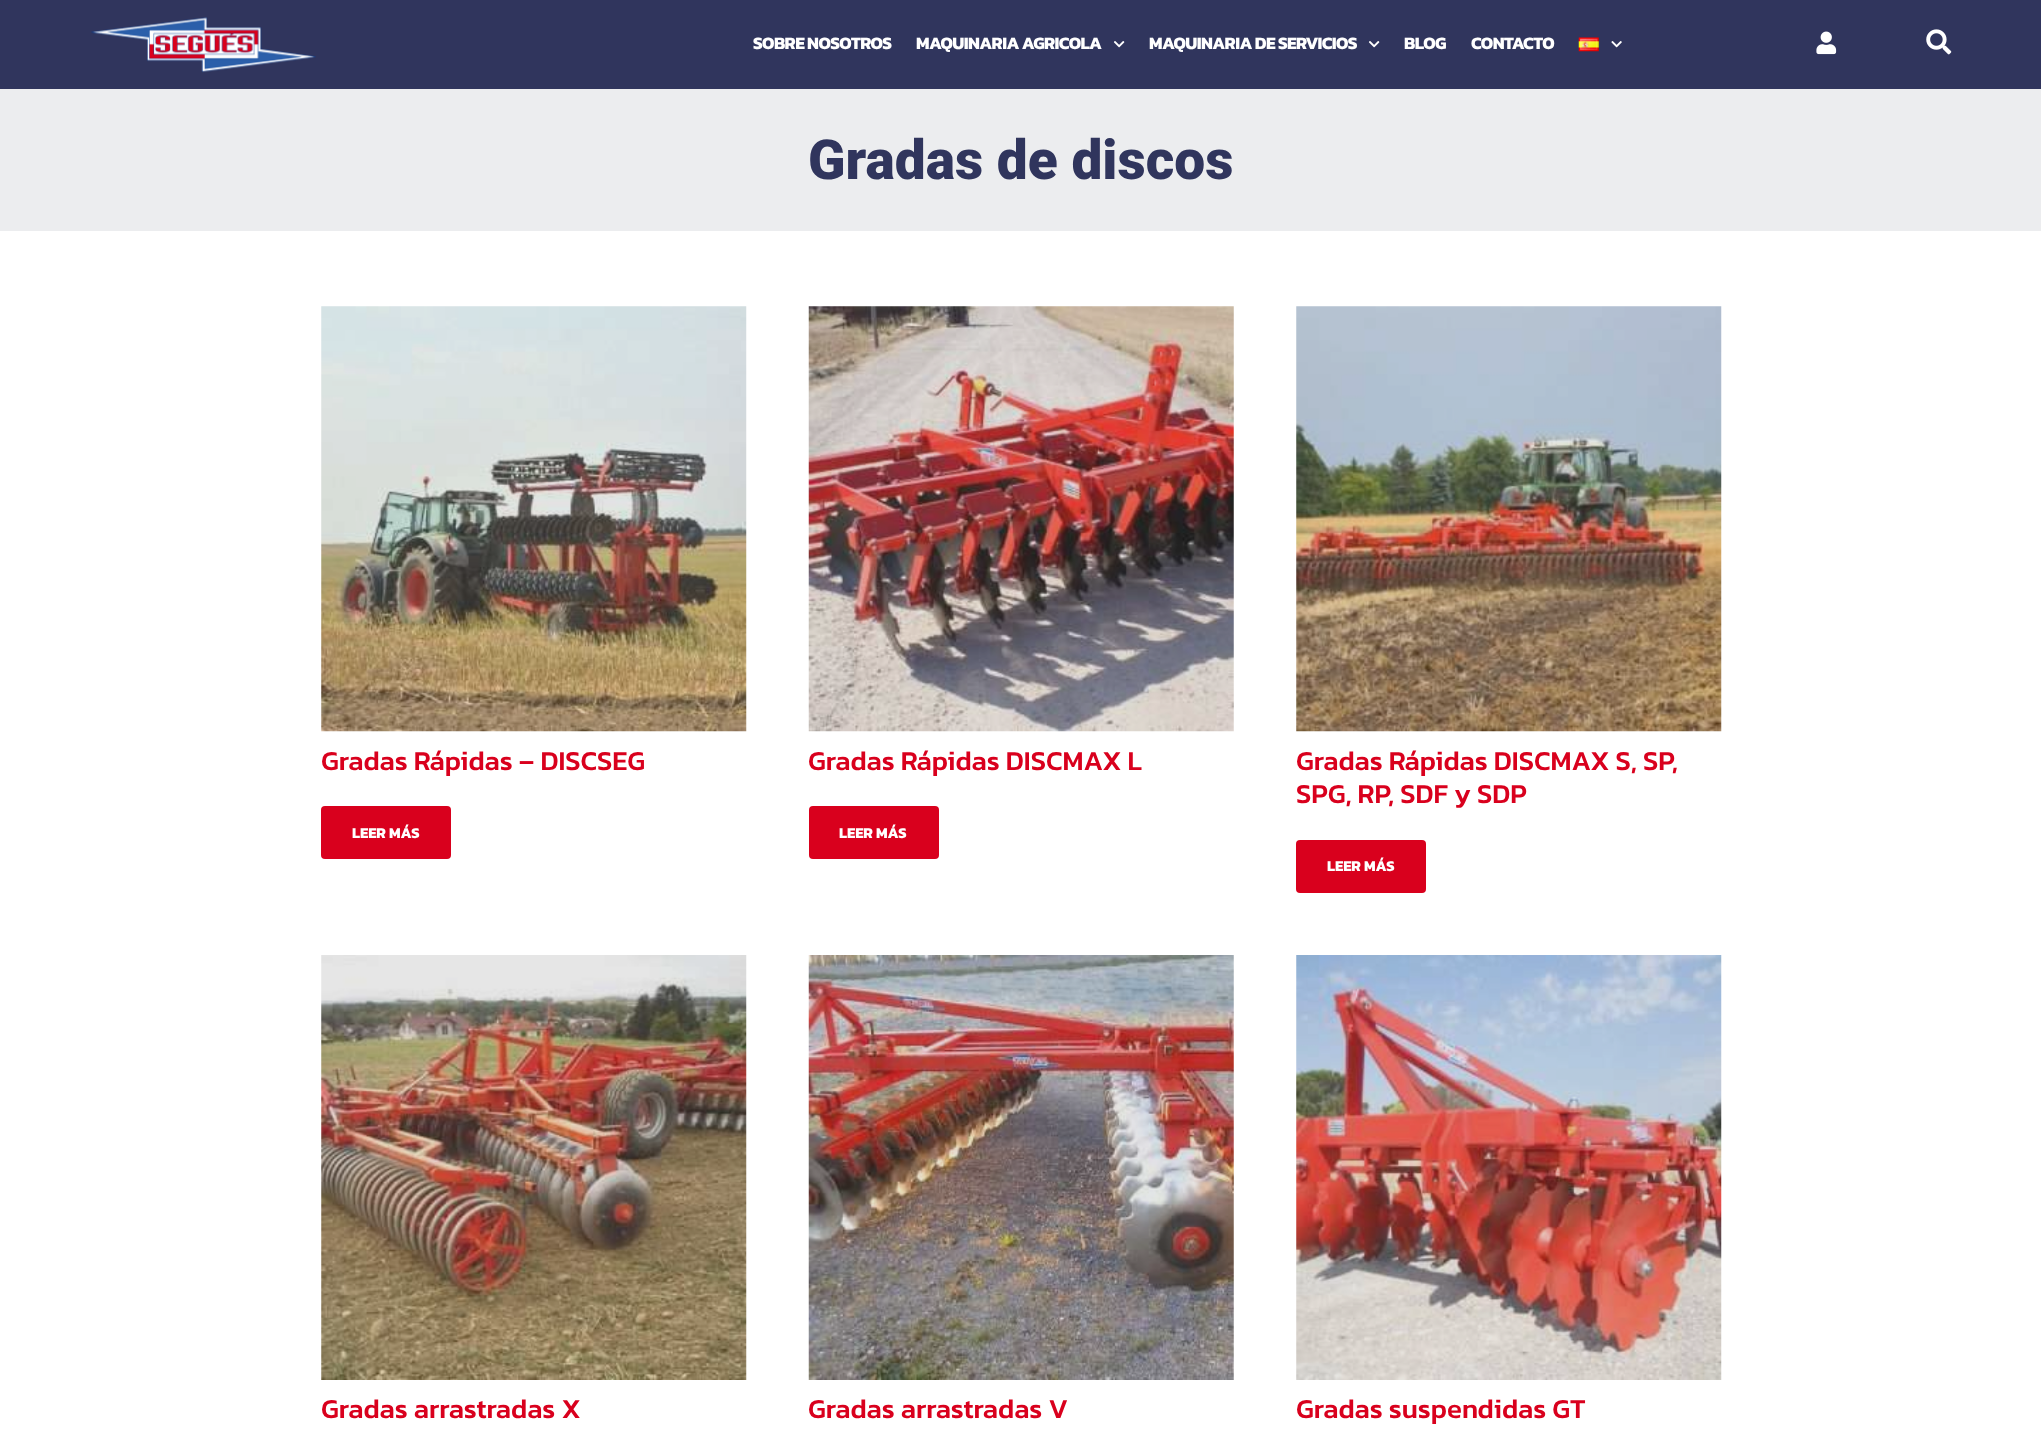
<?xml version="1.0" encoding="UTF-8"?>
<svg xmlns="http://www.w3.org/2000/svg" xmlns:xlink="http://www.w3.org/1999/xlink" width="2041" height="1447">
  <rect width="100%" height="100%" fill="#ffffff" />
  <rect width="2041" height="89" fill="#30355d" />
  <image x="91" y="17" width="225" height="56" xlink:href="image1.png" />
  <image x="1113" y="41" width="12" height="7" xlink:href="image2.png" />
  <image x="1368" y="41" width="12" height="7" xlink:href="image2.png" />
  <image x="1578" y="37" width="21" height="15" xlink:href="image3.png" />
  <image x="1611" y="41" width="11" height="7" xlink:href="image4.png" />
  <image x="1816" y="31" width="21" height="24" xlink:href="image5.png" />
  <image x="1926" y="29" width="26" height="26" xlink:href="image6.png" />
  <rect y="89" width="2041" height="142" fill="#ecedef" />
  <image x="321" y="306" width="426" height="426" xlink:href="image7.png" />
  <rect x="321" y="806" width="130" height="53" rx="4" fill="#d9001d" />
  <image x="808" y="306" width="426" height="426" xlink:href="image8.png" />
  <rect x="809" y="806" width="130" height="53" rx="4" fill="#d9001d" />
  <image x="1296" y="306" width="426" height="426" xlink:href="image9.png" />
  <rect x="1296" y="840" width="130" height="53" rx="4" fill="#d9001d" />
  <image x="321" y="955" width="426" height="425" xlink:href="image10.png" />
  <image x="808" y="955" width="426" height="425" xlink:href="image11.png" />
  <image x="1296" y="955" width="426" height="425" xlink:href="image12.png" />
  <text x="753" y="49" style="font-family: Kanit; font-size: 17.5px; font-weight: bold; letter-spacing: -0.6px; fill: #ffffff">SOBRE NOSOTROS</text>
  <text x="916" y="49" style="font-family: Kanit; font-size: 17.5px; font-weight: bold; letter-spacing: -0.6px; fill: #ffffff">MAQUINARIA AGRICOLA</text>
  <text x="1149" y="49" style="font-family: Kanit; font-size: 17.5px; font-weight: bold; letter-spacing: -0.6px; fill: #ffffff">MAQUINARIA DE SERVICIOS</text>
  <text x="1404" y="49" style="font-family: Kanit; font-size: 17.5px; font-weight: bold; letter-spacing: -0.6px; fill: #ffffff">BLOG</text>
  <text x="1471" y="49" style="font-family: Kanit; font-size: 17.5px; font-weight: bold; letter-spacing: -0.6px; fill: #ffffff">CONTACTO</text>
  <text x="808" y="179" style="font-family: Roboto; font-size: 55px; font-weight: 900; fill: #30355d">Gradas de discos</text>
  <text x="321" y="770" style="font-family: Kanit; font-size: 27.5px; font-weight: 500; fill: #d9001d">Gradas Rápidas – DISCSEG</text>
  <text x="352" y="838" style="font-family: Kanit; font-size: 15px; font-weight: bold; fill: #ffffff">LEER MÁS</text>
  <text x="808" y="770" style="font-family: Kanit; font-size: 27.5px; font-weight: 500; fill: #d9001d">Gradas Rápidas DISCMAX L</text>
  <text x="839" y="838" style="font-family: Kanit; font-size: 15px; font-weight: bold; fill: #ffffff">LEER MÁS</text>
  <text x="1296" y="770" style="font-family: Kanit; font-size: 27.5px; font-weight: 500; fill: #d9001d">Gradas Rápidas DISCMAX S, SP,</text>
  <text x="1296" y="803" style="font-family: Kanit; font-size: 27.5px; font-weight: 500; fill: #d9001d">SPG, RP, SDF y SDP</text>
  <text x="1327" y="871" style="font-family: Kanit; font-size: 15px; font-weight: bold; fill: #ffffff">LEER MÁS</text>
  <text x="321" y="1418" style="font-family: Kanit; font-size: 27.5px; font-weight: 500; fill: #d9001d">Gradas arrastradas X</text>
  <text x="808" y="1418" style="font-family: Kanit; font-size: 27.5px; font-weight: 500; fill: #d9001d">Gradas arrastradas V</text>
  <text x="1296" y="1418" style="font-family: Kanit; font-size: 27.5px; font-weight: 500; fill: #d9001d">Gradas suspendidas GT</text>
</svg>
